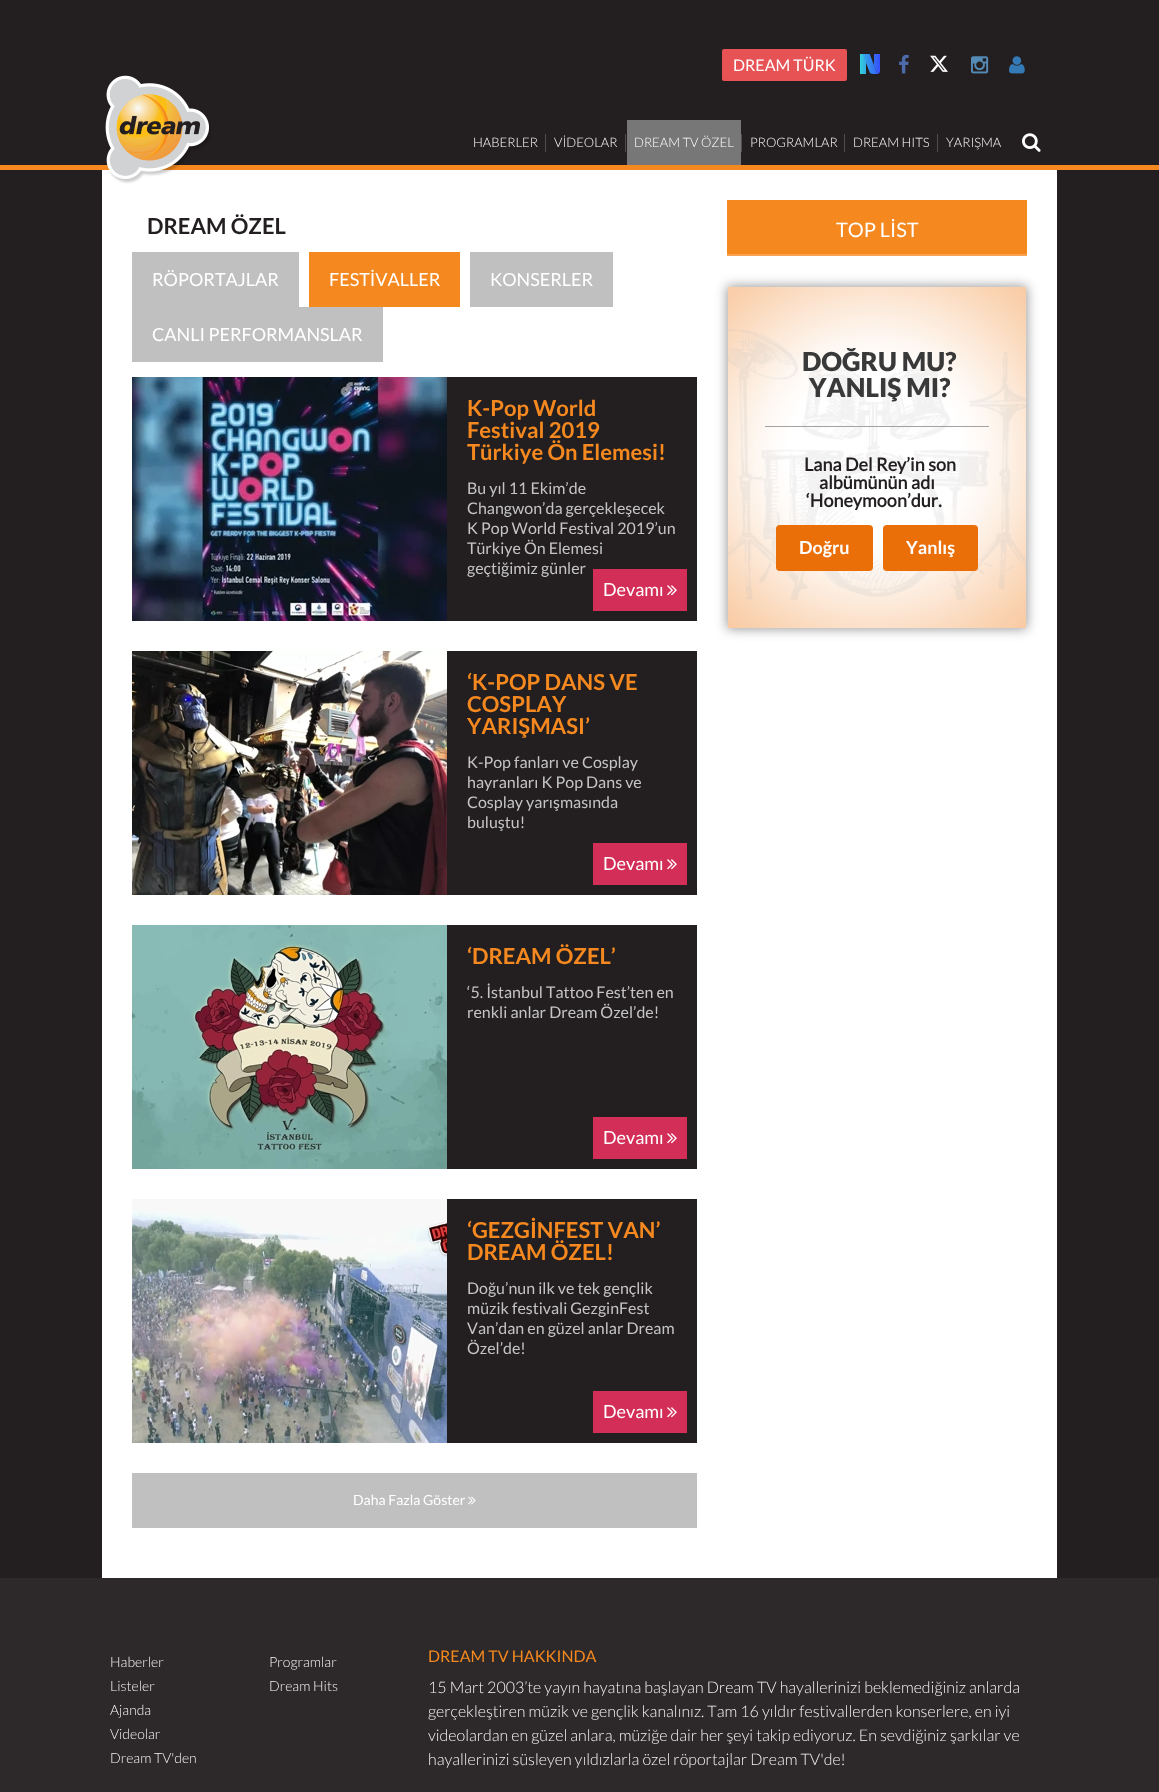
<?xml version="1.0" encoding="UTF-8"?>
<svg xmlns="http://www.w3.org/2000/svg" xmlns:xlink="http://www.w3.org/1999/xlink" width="1159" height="1792">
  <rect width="100%" height="100%" fill="#231f20" />
  <rect y="165" width="1159" height="5" fill="#f5891f" />
  <rect x="722" y="49" width="125" height="32" rx="2" fill="#e75254" />
  <image x="860" y="54" width="20" height="20" xlink:href="image1.png" />
  <image x="899" y="54" width="10" height="20" xlink:href="image2.png" />
  <image x="930" y="55" width="18" height="17" xlink:href="image3.png" />
  <image x="971" y="56" width="18" height="18" xlink:href="image4.png" />
  <image x="1009" y="56" width="16" height="18" xlink:href="image5.png" />
  <rect x="102" y="170" width="955" height="1408" fill="#ffffff" />
  <image x="105" y="75" width="106" height="109" xlink:href="image6.png" />
  <rect x="545" y="134" width="1" height="18" fill="#4f4c4d" />
  <rect x="625" y="134" width="1" height="18" fill="#4f4c4d" />
  <rect x="627" y="120" width="114" height="45" fill="#787778" />
  <rect x="741" y="134" width="1" height="18" fill="#4f4c4d" />
  <rect x="844" y="134" width="1" height="18" fill="#4f4c4d" />
  <rect x="937" y="134" width="1" height="18" fill="#4f4c4d" />
  <image x="1022" y="133" width="19" height="19" xlink:href="image7.png" />
  <rect x="132" y="252" width="167" height="55" fill="#c0c0c0" />
  <rect x="309" y="252" width="151" height="55" fill="#f5891f" />
  <rect x="470" y="252" width="143" height="55" fill="#c0c0c0" />
  <rect x="132" y="307" width="251" height="55" fill="#c0c0c0" />
  <rect x="447" y="377" width="250" height="244" fill="#231f20" />
  <image x="132" y="377" width="315" height="244" xlink:href="image8.png" />
  <rect x="593" y="569" width="94" height="42" fill="#d32e57" />
  <image x="667" y="585" width="10" height="11" xlink:href="image9.png" />
  <rect x="447" y="651" width="250" height="244" fill="#231f20" />
  <image x="132" y="651" width="315" height="244" xlink:href="image10.png" />
  <rect x="593" y="843" width="94" height="42" fill="#d32e57" />
  <image x="667" y="859" width="10" height="11" xlink:href="image9.png" />
  <rect x="447" y="925" width="250" height="244" fill="#231f20" />
  <image x="132" y="925" width="315" height="244" xlink:href="image11.png" />
  <rect x="593" y="1117" width="94" height="42" fill="#d32e57" />
  <image x="667" y="1133" width="10" height="11" xlink:href="image9.png" />
  <rect x="447" y="1199" width="250" height="244" fill="#231f20" />
  <image x="132" y="1199" width="315" height="244" xlink:href="image12.png" />
  <rect x="593" y="1391" width="94" height="42" fill="#d32e57" />
  <image x="667" y="1407" width="10" height="11" xlink:href="image9.png" />
  <rect x="132" y="1473" width="565" height="55" fill="#c0c0c0" />
  <image x="468" y="1496" width="8" height="9" xlink:href="image13.png" />
  <rect x="727" y="200" width="300" height="54" fill="#f5891f" />
  <rect x="727" y="254" width="300" height="2" fill="#f7a350" />
  <rect x="727" y="287" width="300" height="309" rx="4" fill="#000000" fill-opacity="0.05" filter="blur(0.5px)" />
  <rect x="727" y="286" width="300" height="309" rx="4" fill="#ffffff" />
  <rect x="727" y="286" width="300" height="343" fill="#000000" fill-opacity="0.4" filter="blur(6px)" />
  <image x="728" y="287" width="298" height="341" xlink:href="image14.png" />
  <rect x="765" y="426" width="224" height="1" fill="#a3a1a2" />
  <rect x="776" y="525" width="97" height="46" rx="4" fill="#ea6f09" />
  <rect x="883" y="525" width="95" height="46" rx="4" fill="#ea6f09" />
  <rect y="1578" width="1159" height="214" fill="#2d2829" />
  <text x="733" y="71" style="font-family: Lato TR; font-size: 16px; fill: #ffffff">DREAM TÜRK</text>
  <text x="473" y="147" style="font-family: Lato TR; font-size: 13px; font-weight: 300; fill: #ffffff">HABERLER</text>
  <text x="554" y="147" style="font-family: Lato TR; font-size: 13px; font-weight: 300; fill: #ffffff">VİDEOLAR</text>
  <text x="634" y="147" style="font-family: Lato TR; font-size: 13px; font-weight: 300; fill: #ffffff">DREAM TV ÖZEL</text>
  <text x="750" y="147" style="font-family: Lato TR; font-size: 13px; font-weight: 300; fill: #ffffff">PROGRAMLAR</text>
  <text x="853" y="147" style="font-family: Lato TR; font-size: 13px; font-weight: 300; fill: #ffffff">DREAM HITS</text>
  <text x="946" y="147" style="font-family: Lato TR; font-size: 13px; font-weight: 300; fill: #ffffff">YARIŞMA</text>
  <text x="147" y="234" style="font-family: Lato TR; font-size: 22px; font-weight: bold; fill: #231f20">DREAM ÖZEL</text>
  <text x="152" y="286" style="font-family: Lato TR; font-size: 18px; fill: #ffffff">RÖPORTAJLAR</text>
  <text x="329" y="286" style="font-family: Lato TR; font-size: 18px; fill: #ffffff">FESTİVALLER</text>
  <text x="490" y="286" style="font-family: Lato TR; font-size: 18px; fill: #ffffff">KONSERLER</text>
  <text x="152" y="341" style="font-family: Lato TR; font-size: 18px; fill: #ffffff">CANLI PERFORMANSLAR</text>
  <text x="467" y="416" style="font-family: Lato TR; font-size: 22px; font-weight: bold; fill: #f5891f">K-Pop World</text>
  <text x="467" y="438" style="font-family: Lato TR; font-size: 22px; font-weight: bold; fill: #f5891f">Festival 2019</text>
  <text x="467" y="460" style="font-family: Lato TR; font-size: 22px; font-weight: bold; fill: #f5891f">Türkiye Ön Elemesi!</text>
  <text x="467" y="494" style="font-family: Lato TR; font-size: 16px; fill: #c4c4c4">Bu yıl 11 Ekim’de</text>
  <text x="467" y="514" style="font-family: Lato TR; font-size: 16px; fill: #c4c4c4">Changwon’da gerçekleşecek</text>
  <text x="467" y="534" style="font-family: Lato TR; font-size: 16px; fill: #c4c4c4">K Pop World Festival 2019’un</text>
  <text x="467" y="554" style="font-family: Lato TR; font-size: 16px; fill: #c4c4c4">Türkiye Ön Elemesi</text>
  <text x="467" y="574" style="font-family: Lato TR; font-size: 16px; fill: #c4c4c4">geçtiğimiz günler</text>
  <text x="603" y="596" style="font-family: Lato TR; font-size: 18px; fill: #ffffff">Devamı</text>
  <text x="467" y="690" style="font-family: Lato TR; font-size: 22px; font-weight: bold; fill: #f5891f">‘K-POP DANS VE</text>
  <text x="467" y="712" style="font-family: Lato TR; font-size: 22px; font-weight: bold; fill: #f5891f">COSPLAY</text>
  <text x="467" y="734" style="font-family: Lato TR; font-size: 22px; font-weight: bold; fill: #f5891f">YARIŞMASI’</text>
  <text x="467" y="768" style="font-family: Lato TR; font-size: 16px; fill: #c4c4c4">K-Pop fanları ve Cosplay</text>
  <text x="467" y="788" style="font-family: Lato TR; font-size: 16px; fill: #c4c4c4">hayranları K Pop Dans ve</text>
  <text x="467" y="808" style="font-family: Lato TR; font-size: 16px; fill: #c4c4c4">Cosplay yarışmasında</text>
  <text x="467" y="828" style="font-family: Lato TR; font-size: 16px; fill: #c4c4c4">buluştu!</text>
  <text x="603" y="870" style="font-family: Lato TR; font-size: 18px; fill: #ffffff">Devamı</text>
  <text x="467" y="964" style="font-family: Lato TR; font-size: 22px; font-weight: bold; fill: #f5891f">‘DREAM ÖZEL’</text>
  <text x="467" y="998" style="font-family: Lato TR; font-size: 16px; fill: #c4c4c4">‘5. İstanbul Tattoo Fest’ten en</text>
  <text x="467" y="1018" style="font-family: Lato TR; font-size: 16px; fill: #c4c4c4">renkli anlar Dream Özel’de!</text>
  <text x="603" y="1144" style="font-family: Lato TR; font-size: 18px; fill: #ffffff">Devamı</text>
  <text x="467" y="1238" style="font-family: Lato TR; font-size: 22px; font-weight: bold; fill: #f5891f">‘GEZGİNFEST VAN’</text>
  <text x="467" y="1260" style="font-family: Lato TR; font-size: 22px; font-weight: bold; fill: #f5891f">DREAM ÖZEL!</text>
  <text x="467" y="1294" style="font-family: Lato TR; font-size: 16px; fill: #c4c4c4">Doğu’nun ilk ve tek gençlik</text>
  <text x="467" y="1314" style="font-family: Lato TR; font-size: 16px; fill: #c4c4c4">müzik festivali GezginFest</text>
  <text x="467" y="1334" style="font-family: Lato TR; font-size: 16px; fill: #c4c4c4">Van’dan en güzel anlar Dream</text>
  <text x="467" y="1354" style="font-family: Lato TR; font-size: 16px; fill: #c4c4c4">Özel’de!</text>
  <text x="603" y="1418" style="font-family: Lato TR; font-size: 18px; fill: #ffffff">Devamı</text>
  <text x="353" y="1505" style="font-family: Lato TR; font-size: 14px; fill: #ffffff">Daha Fazla Göster</text>
  <text x="836" y="237" style="font-family: Lato TR; font-size: 20px; fill: #ffffff">TOP LİST</text>
  <text x="802" y="371" style="font-family: Lato TR; font-size: 26px; font-weight: 900; fill: #393939">DOĞRU MU?</text>
  <text x="809" y="397" style="font-family: Lato TR; font-size: 26px; font-weight: 900; fill: #393939">YANLIŞ MI?</text>
  <text x="804" y="471" style="font-family: 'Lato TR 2'; font-size: 18px; font-weight: bold; fill: #231f20">Lana Del Rey’in son</text>
  <text x="819" y="489" style="font-family: 'Lato TR 2'; font-size: 18px; font-weight: bold; fill: #231f20">albümünün adı</text>
  <text x="806" y="507" style="font-family: 'Lato TR 2'; font-size: 18px; font-weight: bold; fill: #231f20">‘Honeymoon’dur.</text>
  <text x="799" y="554" style="font-family: Lato TR; font-size: 18px; font-weight: bold; fill: #ffffff">Doğru</text>
  <text x="906" y="554" style="font-family: Lato TR; font-size: 18px; font-weight: bold; fill: #ffffff">Yanlış</text>
  <text x="110" y="1667" style="font-family: Lato TR; font-size: 14px; font-weight: 300; fill: #f3f3f3">Haberler</text>
  <text x="110" y="1691" style="font-family: Lato TR; font-size: 14px; font-weight: 300; fill: #f3f3f3">Listeler</text>
  <text x="110" y="1715" style="font-family: Lato TR; font-size: 14px; font-weight: 300; fill: #f3f3f3">Ajanda</text>
  <text x="110" y="1739" style="font-family: Lato TR; font-size: 14px; font-weight: 300; fill: #f3f3f3">Videolar</text>
  <text x="110" y="1763" style="font-family: Lato TR; font-size: 14px; font-weight: 300; fill: #f3f3f3">Dream TV'den</text>
  <text x="269" y="1667" style="font-family: Lato TR; font-size: 14px; font-weight: 300; fill: #f3f3f3">Programlar</text>
  <text x="269" y="1691" style="font-family: Lato TR; font-size: 14px; font-weight: 300; fill: #f3f3f3">Dream Hits</text>
  <text x="428" y="1662" style="font-family: Lato TR; font-size: 16px; fill: #f5891f">DREAM TV HAKKINDA</text>
  <text x="428" y="1693" style="font-family: Lato TR; font-size: 16px; font-weight: 300; fill: #f3f3f3">15 Mart 2003’te yayın hayatına başlayan Dream TV hayallerinizi beklemediğiniz anlarda</text>
  <text x="428" y="1717" style="font-family: Lato TR; font-size: 16px; font-weight: 300; fill: #f3f3f3">gerçekleştiren müzik ve gençlik kanalınız. Tam 16 yıldır festivallerden konserlere, en iyi</text>
  <text x="428" y="1741" style="font-family: Lato TR; font-size: 16px; font-weight: 300; fill: #f3f3f3">videolardan en güzel anlara, müziğe dair her şeyi takip ediyoruz. En sevdiğiniz şarkılar ve</text>
  <text x="428" y="1765" style="font-family: Lato TR; font-size: 16px; font-weight: 300; fill: #f3f3f3">hayallerinizi süsleyen yıldızlarla özel röportajlar Dream TV'de!</text>
</svg>
